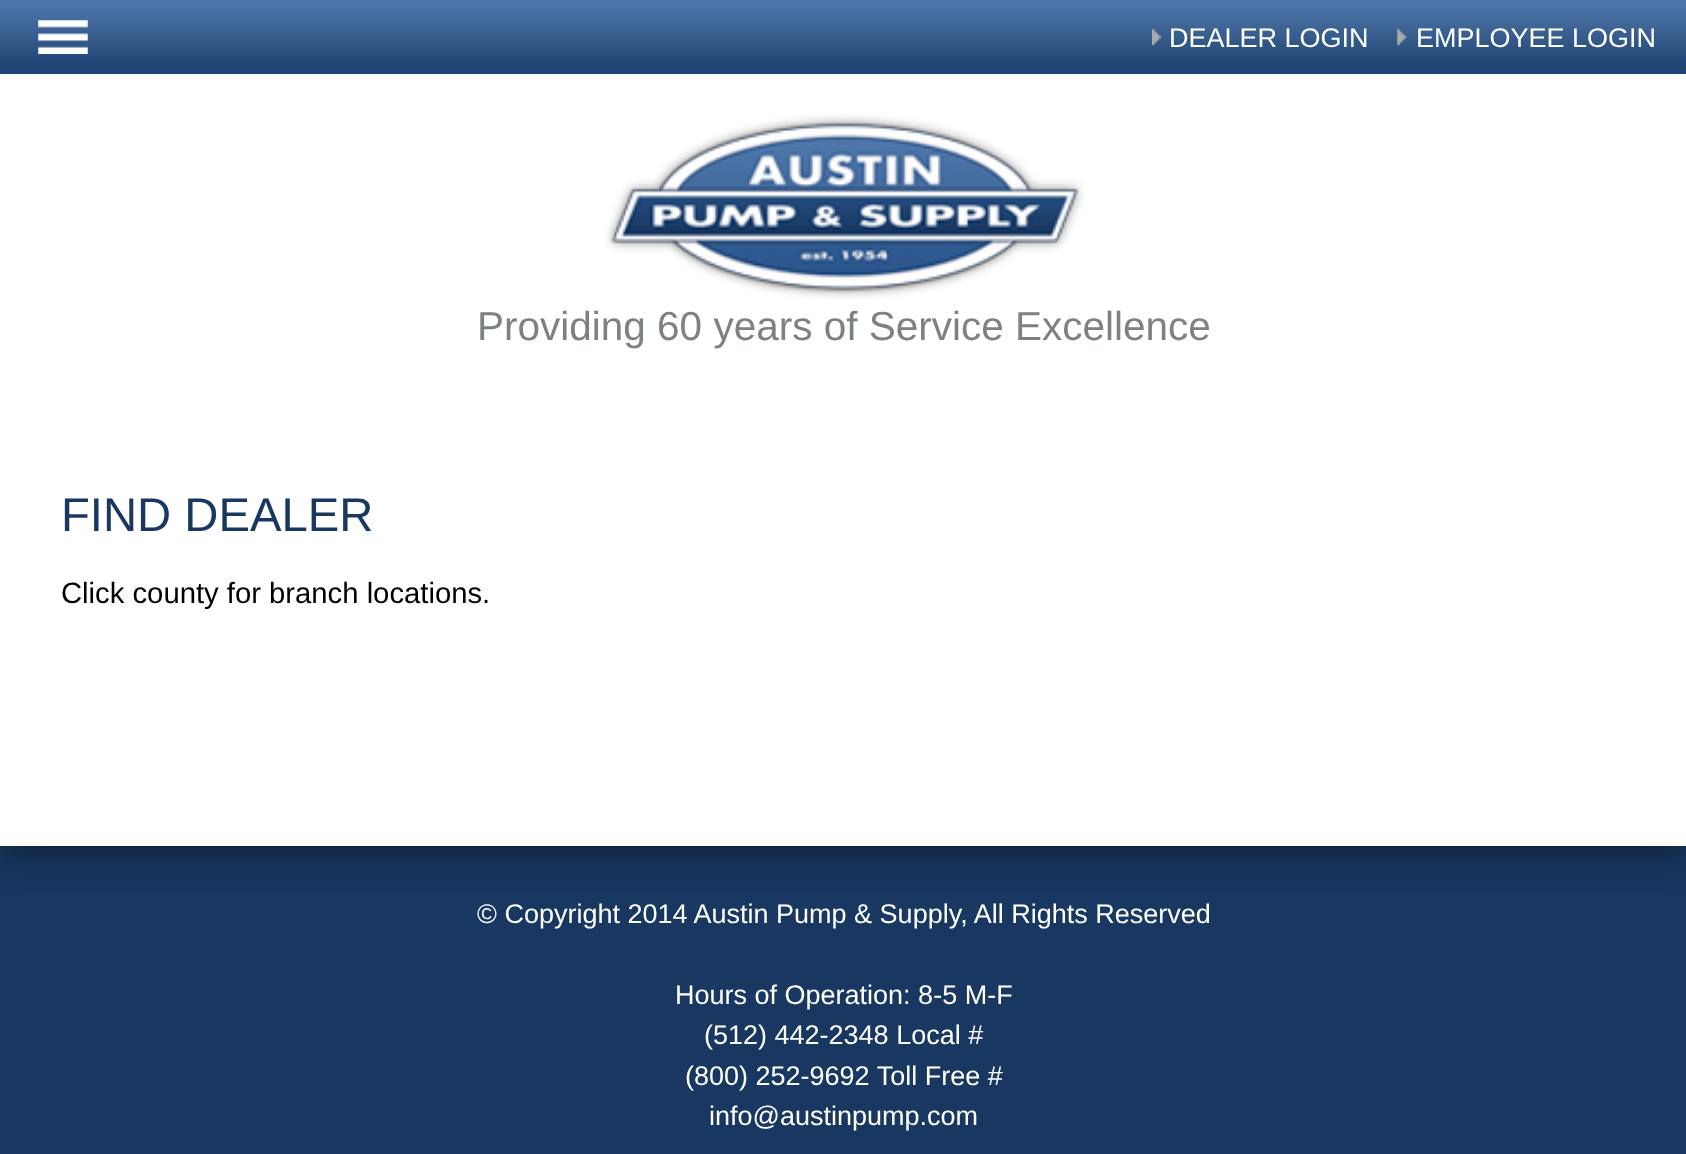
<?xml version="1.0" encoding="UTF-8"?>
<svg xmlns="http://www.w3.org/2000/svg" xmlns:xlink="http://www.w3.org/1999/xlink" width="1686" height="1154">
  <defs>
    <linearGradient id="g1" gradientUnits="userSpaceOnUse" x1="844" y1="0" x2="844" y2="74"><stop offset="0" stop-color="#4e76a9" /><stop offset="0.26" stop-color="#446b9d" /><stop offset="0.81" stop-color="#244978" /><stop offset="1" stop-color="#1e4270" /></linearGradient>
    <clipPath id="clip1"><rect x="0" y="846" width="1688" height="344" /></clipPath>
  </defs>
  <rect width="100%" height="100%" fill="#ffffff" />
  <rect width="1686" height="74" fill="url(#g1)" />
  <image x="38" y="20" width="50" height="34" xlink:href="image1.png" />
  <image x="1152" y="29" width="9" height="16" xlink:href="image2.png" />
  <image x="1397" y="29" width="10" height="16" xlink:href="image3.png" />
  <image x="605" y="114" width="479" height="185" xlink:href="image4.png" />
  <rect y="846" width="1686" height="308" fill="#183761" />
  <g clip-path="url(#clip1)">
    <rect y="812" width="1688" height="36" fill="#0b182a" filter="blur(18px)" />
  </g>
  <text x="1169" y="47" style="font-family: Liberation Sans; font-size: 27px; fill: #ffffff">DEALER LOGIN</text>
  <text x="1416" y="47" style="font-family: Liberation Sans; font-size: 27px; fill: #ffffff">EMPLOYEE LOGIN</text>
  <text x="477" y="340" style="font-family: Liberation Sans; font-size: 40.5px; fill: #7b8184">Providing 60 years of Service Excellence</text>
  <text x="61" y="531" style="font-family: Liberation Sans; font-size: 47.25px; fill: #183761">FIND DEALER</text>
  <text x="61" y="603" style="font-family: Liberation Sans; font-size: 29.25px; fill: #000000">Click county for branch locations.</text>
  <text x="477" y="923" style="font-family: Liberation Sans; font-size: 27px; fill: #ffffff">© Copyright 2014 Austin Pump &amp; Supply, All Rights Reserved</text>
  <text x="675" y="1004" style="font-family: Liberation Sans; font-size: 27px; fill: #ffffff">Hours of Operation: 8-5 M-F</text>
  <text x="704" y="1044" style="font-family: Liberation Sans; font-size: 27px; fill: #ffffff">(512) 442-2348 Local #</text>
  <text x="685" y="1085" style="font-family: Liberation Sans; font-size: 27px; fill: #ffffff">(800) 252-9692 Toll Free #</text>
  <text x="709" y="1125" style="font-family: Liberation Sans; font-size: 27px; fill: #ffffff">info@austinpump.com</text>
</svg>
